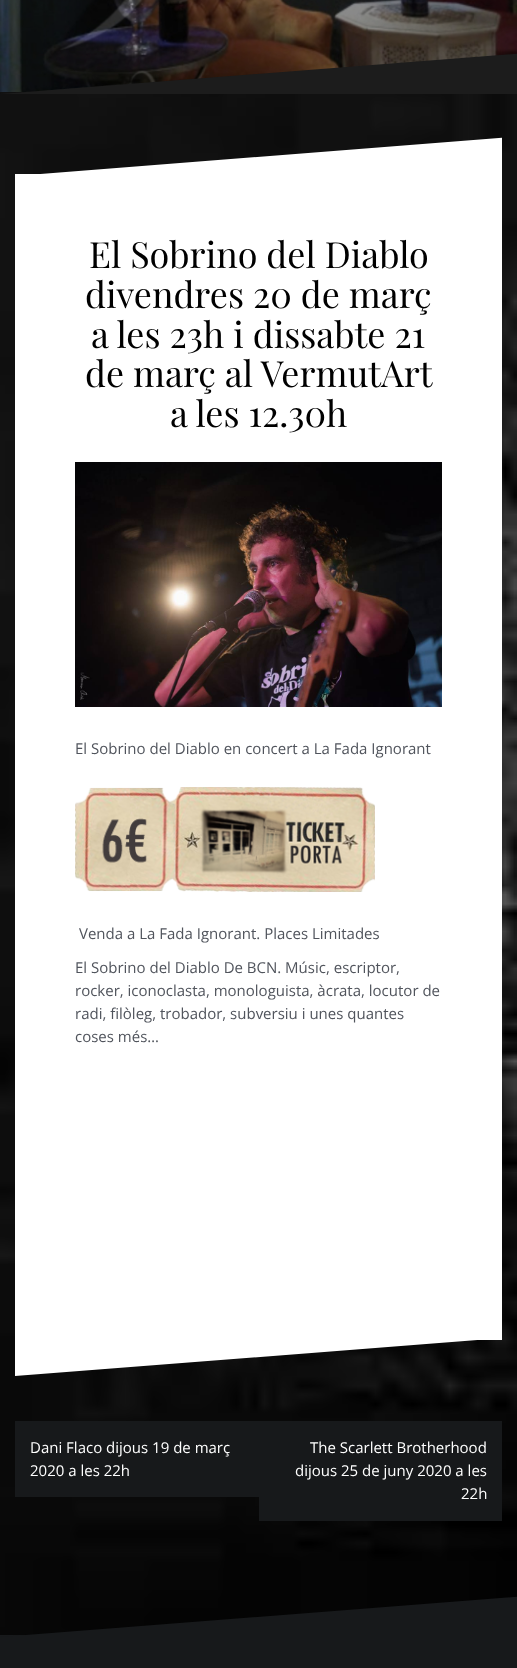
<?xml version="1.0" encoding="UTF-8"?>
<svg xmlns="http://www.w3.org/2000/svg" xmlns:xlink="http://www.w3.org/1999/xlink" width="517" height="1668">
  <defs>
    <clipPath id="clip1"><rect x="15" y="137" width="487" height="38" /></clipPath>
  </defs>
  <rect width="100%" height="100%" fill="#ffffff" />
  <image x="0" y="92" width="517" height="1543" xlink:href="image1.png" />
  <image x="0" y="0" width="517" height="92" xlink:href="image2.png" />
  <path d="M 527 53 v 41 h -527" fill="#1c1c1c" />
  <rect x="15" y="174" width="487" height="1166" fill="#ffffff" />
  <g clip-path="url(#clip1)">
    <path d="M 511 137 v 39 h -496" fill="#ffffff" />
  </g>
  <image x="75" y="462" width="367" height="245" xlink:href="image3.png" />
  <image x="75" y="787" width="300" height="105" xlink:href="image4.png" />
  <path d="M 15 1376 v -38 h 488" fill="#ffffff" />
  <rect x="15" y="1421" width="244" height="76" fill="#17191b" />
  <rect x="259" y="1421" width="243" height="100" fill="#17191b" />
  <rect y="1635" width="517" height="33" fill="#17191b" />
  <path d="M 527 1596 v 41 h -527" fill="#17191b" />
  <text x="89" y="268" style="font-family: Playfair Display; font-size: 36px; fill: #000000">El Sobrino del Diablo</text>
  <text x="85" y="308" style="font-family: Playfair Display; font-size: 36px; fill: #000000">divendres 20 de març</text>
  <text x="91" y="348" style="font-family: Playfair Display; font-size: 36px; fill: #000000">a les 23h i dissabte 21</text>
  <text x="85" y="387" style="font-family: Playfair Display; font-size: 36px; fill: #000000">de març al VermutArt</text>
  <text x="170" y="427" style="font-family: Playfair Display; font-size: 36px; fill: #000000">a les 12.30h</text>
  <text x="75" y="754" style="font-family: Open Sans; font-size: 15px; fill: #50545c">El Sobrino del Diablo en concert a La Fada Ignorant</text>
  <text x="79" y="939" style="font-family: Open Sans; font-size: 15px; fill: #50545c">Venda a La Fada Ignorant. Places Limitades</text>
  <text x="75" y="973" style="font-family: Open Sans; font-size: 15px; fill: #50545c">El Sobrino del Diablo De BCN. Músic, escriptor,</text>
  <text x="75" y="996" style="font-family: Open Sans; font-size: 15px; fill: #50545c">rocker, iconoclasta, monologuista, àcrata, locutor de</text>
  <text x="75" y="1019" style="font-family: Open Sans; font-size: 15px; fill: #50545c">radi, filòleg, trobador, subversiu i unes quantes</text>
  <text x="75" y="1042" style="font-family: Open Sans; font-size: 15px; fill: #50545c">coses més…</text>
  <text x="30" y="1453" style="font-family: Open Sans; font-size: 15px; fill: #ffffff">Dani Flaco dijous 19 de març</text>
  <text x="30" y="1476" style="font-family: Open Sans; font-size: 15px; fill: #ffffff">2020 a les 22h</text>
  <text x="310" y="1453" style="font-family: Open Sans; font-size: 15px; fill: #ffffff">The Scarlett Brotherhood</text>
  <text x="295" y="1476" style="font-family: Open Sans; font-size: 15px; fill: #ffffff">dijous 25 de juny 2020 a les</text>
  <text x="461" y="1499" style="font-family: Open Sans; font-size: 15px; fill: #ffffff">22h</text>
</svg>
